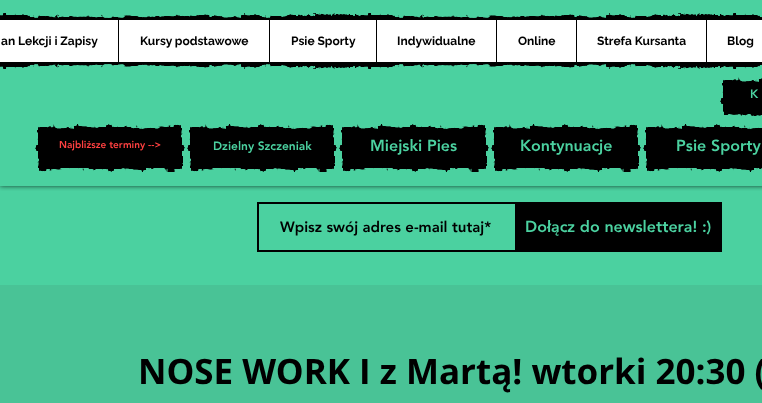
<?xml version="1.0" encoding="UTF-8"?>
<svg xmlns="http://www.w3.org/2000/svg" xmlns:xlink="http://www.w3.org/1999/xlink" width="762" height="403">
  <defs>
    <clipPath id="clip1"><rect x="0" y="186" width="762" height="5" /></clipPath>
  </defs>
  <rect width="100%" height="100%" fill="#4bd1a0" />
  <g clip-path="url(#clip1)">
    <rect width="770" height="186" fill="#000000" fill-opacity="0.7" filter="blur(2.5px)" />
  </g>
  <image x="0" y="13" width="762" height="7" xlink:href="image1.png" />
  <rect y="20" width="762" height="42" fill="#ffffff" />
  <rect x="118" y="20" width="1" height="42" fill="#000000" />
  <rect x="269" y="20" width="1" height="42" fill="#000000" />
  <rect x="376" y="20" width="1" height="42" fill="#000000" />
  <rect x="496" y="20" width="1" height="42" fill="#000000" />
  <rect x="576" y="20" width="1" height="42" fill="#000000" />
  <rect x="706" y="20" width="1" height="42" fill="#000000" />
  <image x="0" y="62" width="762" height="7" xlink:href="image2.png" />
  <image x="720" y="77" width="42" height="35" xlink:href="image3.png" />
  <rect x="730" y="86" width="32" height="21" fill="#000000" />
  <image x="724" y="107" width="38" height="9" xlink:href="image4.png" />
  <image x="35" y="124" width="146" height="44" xlink:href="image5.png" />
  <image x="39" y="128" width="146" height="44" xlink:href="image6.png" />
  <rect x="45" y="133" width="131" height="30" fill="#000000" />
  <image x="187" y="124" width="146" height="44" xlink:href="image5.png" />
  <image x="191" y="128" width="146" height="44" xlink:href="image6.png" />
  <rect x="197" y="133" width="131" height="30" fill="#000000" />
  <image x="339" y="124" width="146" height="44" xlink:href="image5.png" />
  <image x="343" y="128" width="146" height="44" xlink:href="image6.png" />
  <rect x="349" y="133" width="131" height="30" fill="#000000" />
  <image x="491" y="124" width="146" height="44" xlink:href="image5.png" />
  <image x="495" y="128" width="146" height="44" xlink:href="image6.png" />
  <rect x="501" y="133" width="131" height="30" fill="#000000" />
  <image x="643" y="124" width="119" height="44" xlink:href="image7.png" />
  <rect x="653" y="133" width="109" height="30" fill="#000000" />
  <image x="647" y="163" width="115" height="9" xlink:href="image8.png" />
  <rect x="258" y="203" width="300" height="48" fill="none" stroke="#000000" stroke-width="2" />
  <rect x="515" y="202" width="207" height="50" fill="#000000" />
  <rect y="285" width="762" height="118" fill="#49c396" />
  <text x="1" y="45" style="font-family: Raleway; font-size: 12px; font-weight: bold; fill: #000000">an Lekcji i Zapisy</text>
  <text x="140" y="45" style="font-family: Raleway; font-size: 12px; font-weight: bold; fill: #000000">Kursy podstawowe</text>
  <text x="291" y="45" style="font-family: Raleway; font-size: 12px; font-weight: bold; fill: #000000">Psie Sporty</text>
  <text x="397" y="45" style="font-family: Raleway; font-size: 12px; font-weight: bold; fill: #000000">Indywidualne</text>
  <text x="518" y="45" style="font-family: Raleway; font-size: 12px; font-weight: bold; fill: #000000">Online</text>
  <text x="597" y="45" style="font-family: Raleway; font-size: 12px; font-weight: bold; fill: #000000">Strefa Kursanta</text>
  <text x="727" y="45" style="font-family: Raleway; font-size: 12px; font-weight: bold; fill: #000000">Blog</text>
  <text x="750" y="98" style="font-family: 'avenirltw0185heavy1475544'; font-size: 12px; font-weight: 900; fill: #4bd1a0">K</text>
  <text x="59" y="148" style="font-family: 'avenirltw0185heavy1475544'; font-size: 10px; font-weight: 900; fill: #ff4040">Najbliższe terminy --&gt;</text>
  <text x="213" y="150" style="font-family: 'avenirltw0185heavy1475544'; font-size: 12px; font-weight: 900; fill: #4bd1a0">Dzielny Szczeniak</text>
  <text x="370" y="151" style="font-family: 'avenirltw0185heavy1475544'; font-size: 16px; font-weight: 900; fill: #4bd1a0">Miejski Pies</text>
  <text x="520" y="151" style="font-family: 'avenirltw0185heavy1475544'; font-size: 16px; font-weight: 900; fill: #4bd1a0">Kontynuacje</text>
  <text x="676" y="151" style="font-family: 'avenirltw0185heavy1475544'; font-size: 16px; font-weight: 900; fill: #4bd1a0">Psie Sporty</text>
  <text x="280" y="232" style="font-family: 'avenirltw0185heavy1475544'; font-size: 15px; font-weight: 900; fill: #000000">Wpisz swój adres e-mail tutaj*</text>
  <text x="525" y="232" style="font-family: 'avenirltw0185heavy1475544'; font-size: 16px; font-weight: 900; fill: #4bd1a0">Dołącz do newslettera! :)</text>
  <text x="138" y="384" style="font-family: Open Sans; font-size: 35px; font-weight: bold; fill: #000000">NOSE WORK I z Martą! wtorki 20:30 (</text>
</svg>
